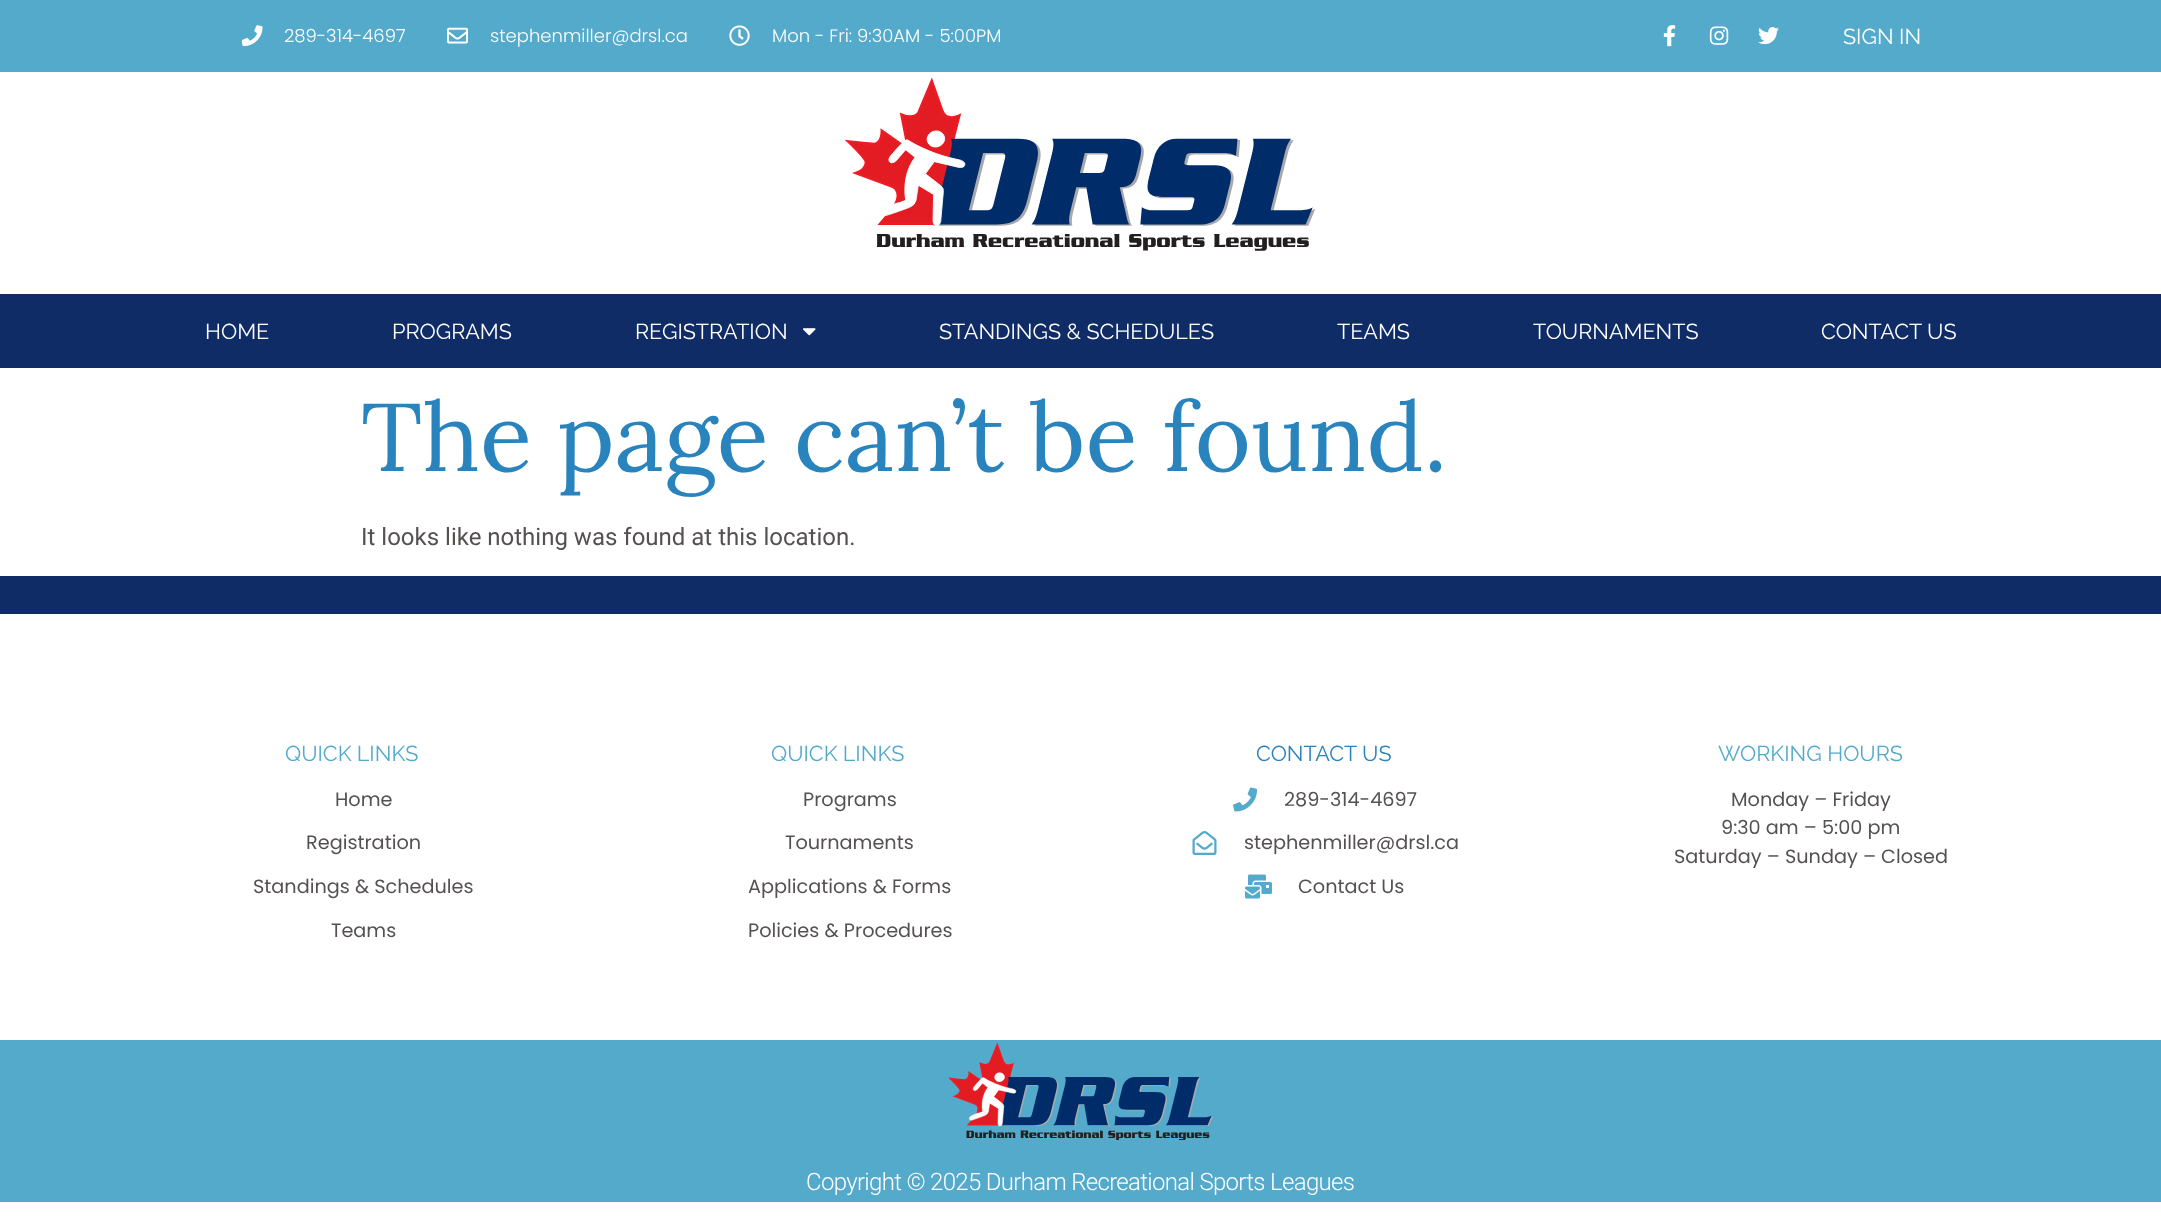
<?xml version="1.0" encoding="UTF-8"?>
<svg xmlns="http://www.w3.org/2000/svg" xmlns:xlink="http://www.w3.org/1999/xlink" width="2161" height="1225">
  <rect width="100%" height="100%" fill="#ffffff" />
  <rect width="2161" height="72" fill="#54aacb" />
  <image x="242" y="25" width="21" height="22" xlink:href="image1.png" />
  <image x="447" y="27" width="21" height="17" xlink:href="image2.png" />
  <image x="729" y="25" width="21" height="21" xlink:href="image3.png" />
  <image x="1663" y="25" width="13" height="22" xlink:href="image4.png" />
  <image x="1709" y="26" width="20" height="19" xlink:href="image5.png" />
  <image x="1758" y="27" width="21" height="18" xlink:href="image6.png" />
  <image x="844" y="77" width="472" height="174" xlink:href="image7.png" />
  <rect y="294" width="2161" height="74" fill="#0f2c67" />
  <image x="803" y="328" width="13" height="8" xlink:href="image8.png" />
  <rect y="576" width="2161" height="38" fill="#0f2c67" />
  <image x="1233" y="787" width="24" height="25" xlink:href="image9.png" />
  <image x="1192" y="831" width="25" height="24" xlink:href="image10.png" />
  <image x="1245" y="874" width="27" height="25" xlink:href="image11.png" />
  <rect y="1040" width="2161" height="162" fill="#54aacb" />
  <image x="948" y="1042" width="265" height="98" xlink:href="image12.png" />
  <text x="284" y="42" style="font-family: Poppins; font-size: 18px; font-weight: 300; fill: #ffffff">289-314-4697</text>
  <text x="490" y="42" style="font-family: Poppins; font-size: 18px; font-weight: 300; fill: #ffffff">stephenmiller@drsl.ca</text>
  <text x="772" y="42" style="font-family: Poppins; font-size: 18px; font-weight: 300; fill: #ffffff">Mon - Fri: 9:30AM - 5:00PM</text>
  <text x="1843" y="44" style="font-family: Raleway; font-size: 21.6px; fill: #ffffff">SIGN IN</text>
  <text x="205" y="339" style="font-family: Raleway; font-size: 21.6px; fill: #ffffff">HOME</text>
  <text x="392" y="339" style="font-family: Raleway; font-size: 21.6px; fill: #ffffff">PROGRAMS</text>
  <text x="635" y="339" style="font-family: Raleway; font-size: 21.6px; fill: #ffffff">REGISTRATION</text>
  <text x="939" y="339" style="font-family: Raleway; font-size: 21.6px; fill: #ffffff">STANDINGS &amp; SCHEDULES</text>
  <text x="1337" y="339" style="font-family: Raleway; font-size: 21.6px; fill: #ffffff">TEAMS</text>
  <text x="1533" y="339" style="font-family: Raleway; font-size: 21.6px; fill: #ffffff">TOURNAMENTS</text>
  <text x="1821" y="339" style="font-family: Raleway; font-size: 21.6px; fill: #ffffff">CONTACT US</text>
  <text x="361" y="471" style="font-family: Lora; font-size: 96px; fill: #2983bd">The page can’t be found.</text>
  <text x="361" y="545" style="font-family: Roboto; font-size: 24px; fill: #565151">It looks like nothing was found at this location.</text>
  <text x="285" y="761" style="font-family: Raleway; font-size: 21.6px; fill: #54aacb">QUICK LINKS</text>
  <text x="335" y="806" style="font-family: Poppins; font-size: 19.25px; fill: #565151">Home</text>
  <text x="306" y="849" style="font-family: Poppins; font-size: 19.25px; fill: #565151">Registration</text>
  <text x="253" y="893" style="font-family: Poppins; font-size: 19.25px; fill: #565151">Standings &amp; Schedules</text>
  <text x="331" y="937" style="font-family: Poppins; font-size: 19.25px; fill: #565151">Teams</text>
  <text x="771" y="761" style="font-family: Raleway; font-size: 21.6px; fill: #54aacb">QUICK LINKS</text>
  <text x="803" y="806" style="font-family: Poppins; font-size: 19.25px; fill: #565151">Programs</text>
  <text x="785" y="849" style="font-family: Poppins; font-size: 19.25px; fill: #565151">Tournaments</text>
  <text x="748" y="893" style="font-family: Poppins; font-size: 19.25px; fill: #565151">Applications &amp; Forms</text>
  <text x="748" y="937" style="font-family: Poppins; font-size: 19.25px; fill: #565151">Policies &amp; Procedures</text>
  <text x="1256" y="761" style="font-family: Raleway; font-size: 21.6px; fill: #2983bd">CONTACT US</text>
  <text x="1284" y="806" style="font-family: Poppins; font-size: 19.25px; fill: #565151">289-314-4697</text>
  <text x="1244" y="849" style="font-family: Poppins; font-size: 19.25px; fill: #565151">stephenmiller@drsl.ca</text>
  <text x="1298" y="893" style="font-family: Poppins; font-size: 19.25px; fill: #565151">Contact Us</text>
  <text x="1718" y="761" style="font-family: Raleway; font-size: 21.6px; fill: #54aacb">WORKING HOURS</text>
  <text x="1731" y="806" style="font-family: Poppins; font-size: 19.25px; fill: #565151">Monday – Friday</text>
  <text x="1721" y="834" style="font-family: Poppins; font-size: 19.25px; fill: #565151">9:30 am – 5:00 pm</text>
  <text x="1674" y="863" style="font-family: Poppins; font-size: 19.25px; fill: #565151">Saturday – Sunday – Closed</text>
  <text x="806" y="1190" style="font-family: Roboto; font-size: 24px; font-weight: 300; letter-spacing: -0.68px; fill: #ffffff">Copyright © 2025 Durham Recreational Sports Leagues</text>
</svg>
